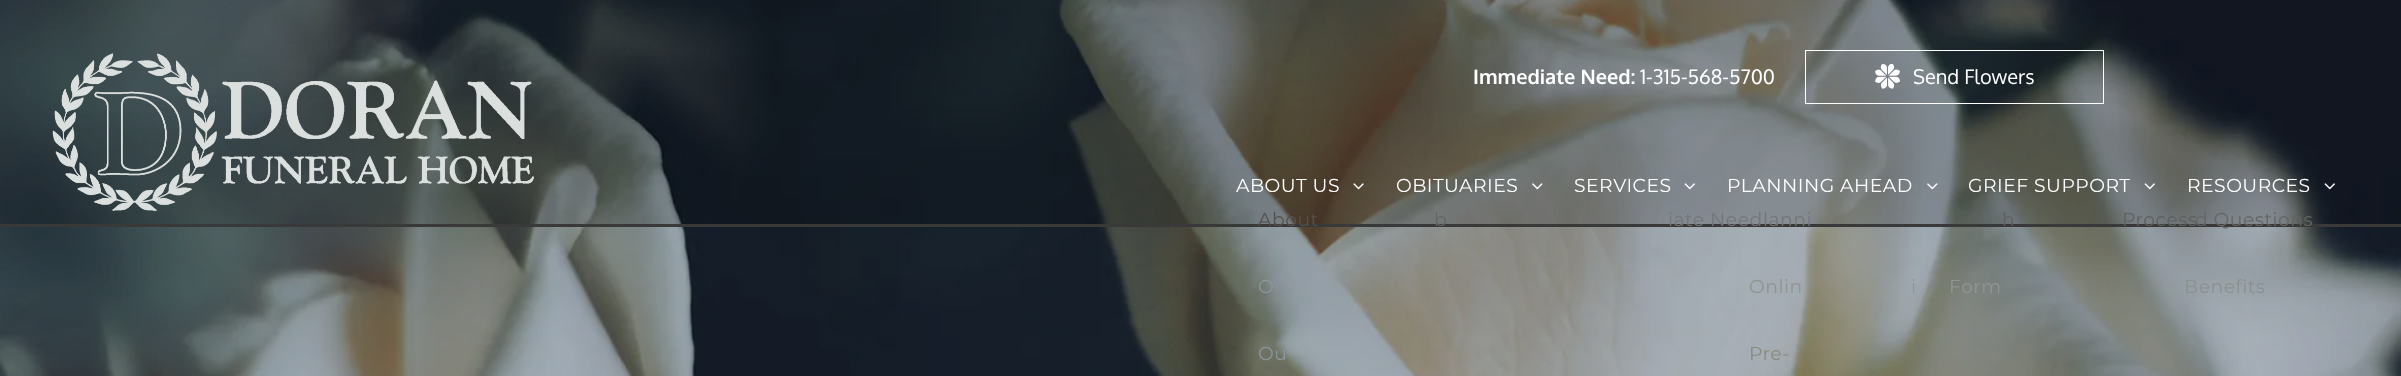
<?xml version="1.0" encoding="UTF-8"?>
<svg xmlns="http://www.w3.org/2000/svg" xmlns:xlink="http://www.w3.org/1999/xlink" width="2401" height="376">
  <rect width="100%" height="100%" fill="#ffffff" />
  <image x="0" y="0" width="2401" height="376" xlink:href="image1.png" />
  <rect width="2401" height="224" fill="#000000" fill-opacity="0.18" />
  <rect y="224" width="2401" height="3" fill="#393939" />
  <rect x="1805.5" y="50.5" width="298" height="53" fill="none" stroke="#ffffff" />
  <image x="1875" y="64" width="25" height="25" xlink:href="image2.png" />
  <image x="52" y="53" width="482" height="158" xlink:href="image3.png" />
  <image x="1353" y="183" width="11" height="7" xlink:href="image4.png" />
  <image x="1532" y="183" width="11" height="7" xlink:href="image5.png" />
  <image x="1684" y="183" width="11" height="7" xlink:href="image6.png" />
  <image x="1927" y="183" width="11" height="7" xlink:href="image7.png" />
  <image x="2144" y="183" width="11" height="7" xlink:href="image8.png" />
  <image x="2324" y="183" width="11" height="7" xlink:href="image9.png" />
  <text x="1473" y="84" style="font-family: Oxygen; font-size: 20px; font-weight: bold; fill: #ffffff">Immediate Need:</text>
  <text x="1640" y="84" style="font-family: Oxygen; font-size: 20px; fill: #ffffff">1-315-568-5700</text>
  <text x="1913" y="84" style="font-family: Oxygen; font-size: 20px; fill: #ffffff">Send Flowers</text>
  <text x="1236" y="192" style="font-family: Montserrat; font-size: 18.75px; letter-spacing: 0.5px; fill: #ffffff">ABOUT US</text>
  <text x="1258" y="226" style="font-family: Montserrat; font-size: 18.75px; letter-spacing: 0.5px; fill: #54514c">About</text>
  <text x="1258" y="293" style="font-family: Montserrat; font-size: 18.75px; letter-spacing: 0.5px; fill: #8c959a">O</text>
  <text x="1258" y="360" style="font-family: Montserrat; font-size: 18.75px; letter-spacing: 0.5px; fill: #8c959a">Ou</text>
  <text x="1396" y="192" style="font-family: Montserrat; font-size: 18.75px; letter-spacing: 0.5px; fill: #ffffff">OBITUARIES</text>
  <text x="1434" y="226" style="font-family: Montserrat; font-size: 18.75px; letter-spacing: 0.5px; fill: #656664">b</text>
  <text x="1574" y="192" style="font-family: Montserrat; font-size: 18.75px; letter-spacing: 0.5px; fill: #ffffff">SERVICES</text>
  <text x="1668" y="226" style="font-family: Montserrat; font-size: 18.75px; letter-spacing: 0.5px; fill: #72767a">iate Need</text>
  <text x="1727" y="192" style="font-family: Montserrat; font-size: 18.75px; letter-spacing: 0.5px; fill: #ffffff">PLANNING AHEAD</text>
  <text x="1763" y="226" style="font-family: Montserrat; font-size: 18.75px; letter-spacing: 0.5px; fill: #72767a">lanni</text>
  <text x="1749" y="293" style="font-family: Montserrat; font-size: 18.75px; letter-spacing: 0.5px; fill: #909591">Onlin</text>
  <text x="1911" y="293" style="font-family: Montserrat; font-size: 18.75px; letter-spacing: 0.5px; fill: #909591">i</text>
  <text x="1949" y="293" style="font-family: Montserrat; font-size: 18.75px; letter-spacing: 0.5px; fill: #909591">Form</text>
  <text x="1749" y="360" style="font-family: Montserrat; font-size: 18.75px; letter-spacing: 0.5px; fill: #898b7f">Pre-</text>
  <text x="1968" y="192" style="font-family: Montserrat; font-size: 18.75px; letter-spacing: 0.5px; fill: #ffffff">GRIEF SUPPORT</text>
  <text x="2002" y="226" style="font-family: Montserrat; font-size: 18.75px; letter-spacing: 0.5px; fill: #5d605e">h</text>
  <text x="2122" y="226" style="font-family: Montserrat; font-size: 18.75px; letter-spacing: 0.5px; fill: #5d605e">Process</text>
  <text x="2187" y="192" style="font-family: Montserrat; font-size: 18.75px; letter-spacing: 0.5px; fill: #ffffff">RESOURCES</text>
  <text x="2195" y="226" style="font-family: Montserrat; font-size: 18.75px; letter-spacing: 0.5px; fill: #656664">d Questions</text>
  <text x="2184" y="293" style="font-family: Montserrat; font-size: 18.75px; letter-spacing: 0.5px; fill: #8a9192">Benefits</text>
</svg>
